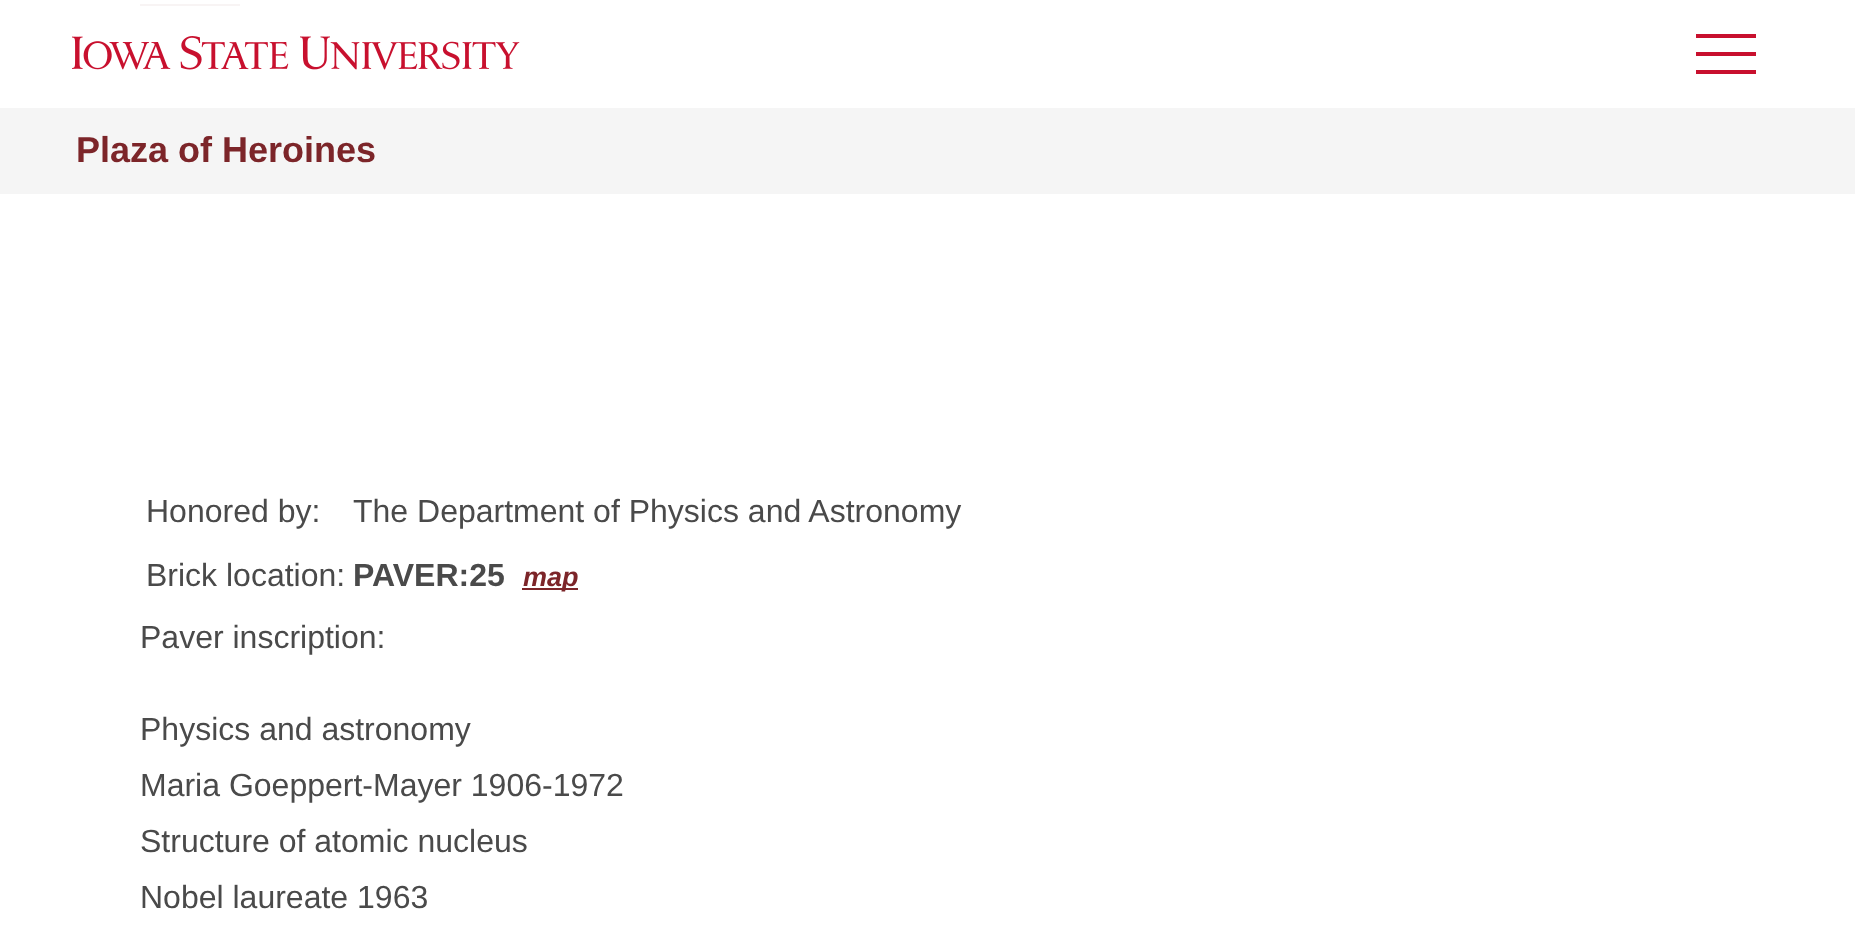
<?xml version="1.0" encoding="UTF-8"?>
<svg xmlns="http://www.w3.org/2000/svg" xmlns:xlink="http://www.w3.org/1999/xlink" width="1855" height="931">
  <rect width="100%" height="100%" fill="#ffffff" />
  <rect x="1696" y="34" width="60" height="4" fill="#c8102e" />
  <rect x="1696" y="52" width="60" height="4" fill="#c8102e" />
  <rect x="1696" y="70" width="60" height="4" fill="#c8102e" />
  <rect x="140" y="4" width="100" height="2" fill="#7c2529" />
  <rect x="140" y="4" width="100" height="2" fill="#ffffff" fill-opacity="0.95" />
  <image x="72" y="36" width="448" height="34" xlink:href="image1.png" />
  <rect y="108" width="1855" height="86" fill="#f5f5f5" />
  <rect x="522" y="588" width="56" height="2" fill="#7c2529" />
  <text x="76" y="162" style="font-family: Liberation Sans; font-size: 36px; font-weight: bold; fill: #7c2529">Plaza of Heroines</text>
  <text x="146" y="522" style="font-family: Liberation Sans; font-size: 32px; fill: #4a4a4a">Honored by:</text>
  <text x="353" y="522" style="font-family: Liberation Sans; font-size: 32px; fill: #4a4a4a">The Department of Physics and Astronomy</text>
  <text x="146" y="586" style="font-family: Liberation Sans; font-size: 32px; fill: #4a4a4a">Brick location:</text>
  <text x="353" y="586" style="font-family: Liberation Sans; font-size: 32px; font-weight: bold; fill: #4a4a4a">PAVER:25</text>
  <text x="523" y="586" style="font-family: Liberation Sans; font-size: 27px; font-weight: bold; font-style: italic; fill: #7c2529">map</text>
  <text x="140" y="648" style="font-family: Liberation Sans; font-size: 32px; fill: #4a4a4a">Paver inscription:</text>
  <text x="140" y="740" style="font-family: Liberation Sans; font-size: 32px; fill: #4a4a4a">Physics and astronomy</text>
  <text x="140" y="796" style="font-family: Liberation Sans; font-size: 32px; fill: #4a4a4a">Maria Goeppert-Mayer 1906-1972</text>
  <text x="140" y="852" style="font-family: Liberation Sans; font-size: 32px; fill: #4a4a4a">Structure of atomic nucleus</text>
  <text x="140" y="908" style="font-family: Liberation Sans; font-size: 32px; fill: #4a4a4a">Nobel laureate 1963</text>
</svg>
